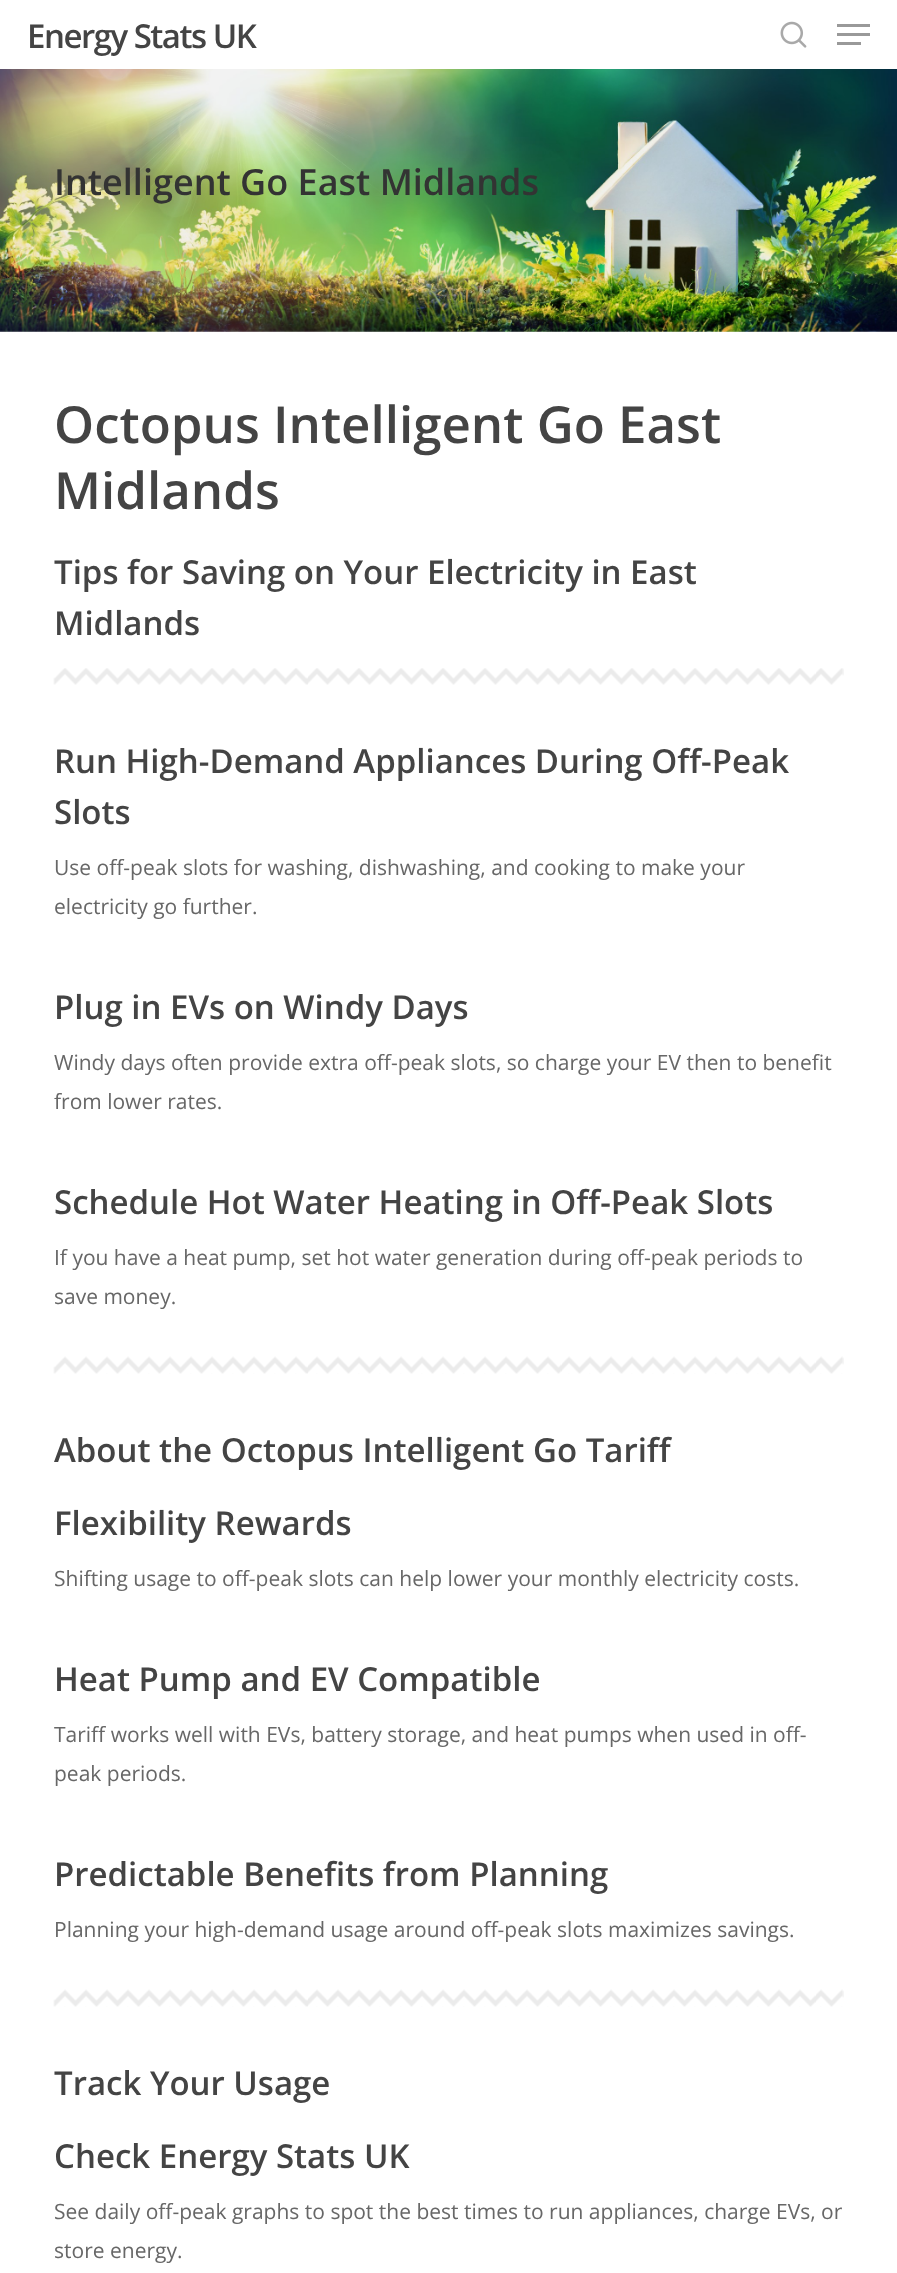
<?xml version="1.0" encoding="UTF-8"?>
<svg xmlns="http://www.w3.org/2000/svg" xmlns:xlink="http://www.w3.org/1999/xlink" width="897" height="2273">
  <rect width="100%" height="100%" fill="#ffffff" />
  <image x="780" y="21" width="27" height="27" xlink:href="image1.png" />
  <rect x="837" y="24" width="33" height="3" fill="#999999" />
  <rect x="837" y="42" width="24" height="3" fill="#999999" />
  <rect x="837" y="33" width="33" height="3" fill="#999999" />
  <image x="0" y="69" width="897" height="263" xlink:href="image2.png" />
  <image x="53" y="668" width="791" height="17" xlink:href="image3.png" />
  <image x="53" y="1356" width="791" height="18" xlink:href="image4.png" />
  <image x="53" y="1989" width="791" height="18" xlink:href="image4.png" />
  <text x="27" y="48" style="font-family: Open Sans; font-size: 33px; font-weight: 600; letter-spacing: -1.5px; fill: #444444">Energy Stats UK</text>
  <text x="54" y="195" style="font-family: Open Sans; font-size: 36px; font-weight: 600; fill: #333333">Intelligent Go East Midlands</text>
  <text x="54" y="443" style="font-family: Open Sans; font-size: 51px; font-weight: 600; fill: #444444">Octopus Intelligent Go East</text>
  <text x="54" y="509" style="font-family: Open Sans; font-size: 51px; font-weight: 600; fill: #444444">Midlands</text>
  <text x="54" y="584" style="font-family: Open Sans; font-size: 33px; font-weight: 600; fill: #444444">Tips for Saving on Your Electricity in East</text>
  <text x="54" y="635" style="font-family: Open Sans; font-size: 33px; font-weight: 600; fill: #444444">Midlands</text>
  <text x="54" y="773" style="font-family: Open Sans; font-size: 33px; font-weight: 600; fill: #444444">Run High-Demand Appliances During Off-Peak</text>
  <text x="54" y="824" style="font-family: Open Sans; font-size: 33px; font-weight: 600; fill: #444444">Slots</text>
  <text x="54" y="875" style="font-family: Open Sans; font-size: 21px; fill: #676767">Use off-peak slots for washing, dishwashing, and cooking to make your</text>
  <text x="54" y="914" style="font-family: Open Sans; font-size: 21px; fill: #676767">electricity go further.</text>
  <text x="54" y="1019" style="font-family: Open Sans; font-size: 33px; font-weight: 600; fill: #444444">Plug in EVs on Windy Days</text>
  <text x="54" y="1070" style="font-family: Open Sans; font-size: 21px; fill: #676767">Windy days often provide extra off-peak slots, so charge your EV then to benefit</text>
  <text x="54" y="1109" style="font-family: Open Sans; font-size: 21px; fill: #676767">from lower rates.</text>
  <text x="54" y="1214" style="font-family: Open Sans; font-size: 33px; font-weight: 600; fill: #444444">Schedule Hot Water Heating in Off-Peak Slots</text>
  <text x="54" y="1265" style="font-family: Open Sans; font-size: 21px; fill: #676767">If you have a heat pump, set hot water generation during off-peak periods to</text>
  <text x="54" y="1304" style="font-family: Open Sans; font-size: 21px; fill: #676767">save money.</text>
  <text x="54" y="1462" style="font-family: Open Sans; font-size: 33px; font-weight: 600; fill: #444444">About the Octopus Intelligent Go Tariff</text>
  <text x="54" y="1535" style="font-family: Open Sans; font-size: 33px; font-weight: 600; fill: #444444">Flexibility Rewards</text>
  <text x="54" y="1586" style="font-family: Open Sans; font-size: 21px; fill: #676767">Shifting usage to off-peak slots can help lower your monthly electricity costs.</text>
  <text x="54" y="1691" style="font-family: Open Sans; font-size: 33px; font-weight: 600; fill: #444444">Heat Pump and EV Compatible</text>
  <text x="54" y="1742" style="font-family: Open Sans; font-size: 21px; fill: #676767">Tariff works well with EVs, battery storage, and heat pumps when used in off-</text>
  <text x="54" y="1781" style="font-family: Open Sans; font-size: 21px; fill: #676767">peak periods.</text>
  <text x="54" y="1886" style="font-family: Open Sans; font-size: 33px; font-weight: 600; fill: #444444">Predictable Benefits from Planning</text>
  <text x="54" y="1937" style="font-family: Open Sans; font-size: 21px; fill: #676767">Planning your high-demand usage around off-peak slots maximizes savings.</text>
  <text x="54" y="2095" style="font-family: Open Sans; font-size: 33px; font-weight: 600; fill: #444444">Track Your Usage</text>
  <text x="54" y="2168" style="font-family: Open Sans; font-size: 33px; font-weight: 600; fill: #444444">Check Energy Stats UK</text>
  <text x="54" y="2219" style="font-family: Open Sans; font-size: 21px; fill: #676767">See daily off-peak graphs to spot the best times to run appliances, charge EVs, or</text>
  <text x="54" y="2258" style="font-family: Open Sans; font-size: 21px; fill: #676767">store energy.</text>
</svg>
